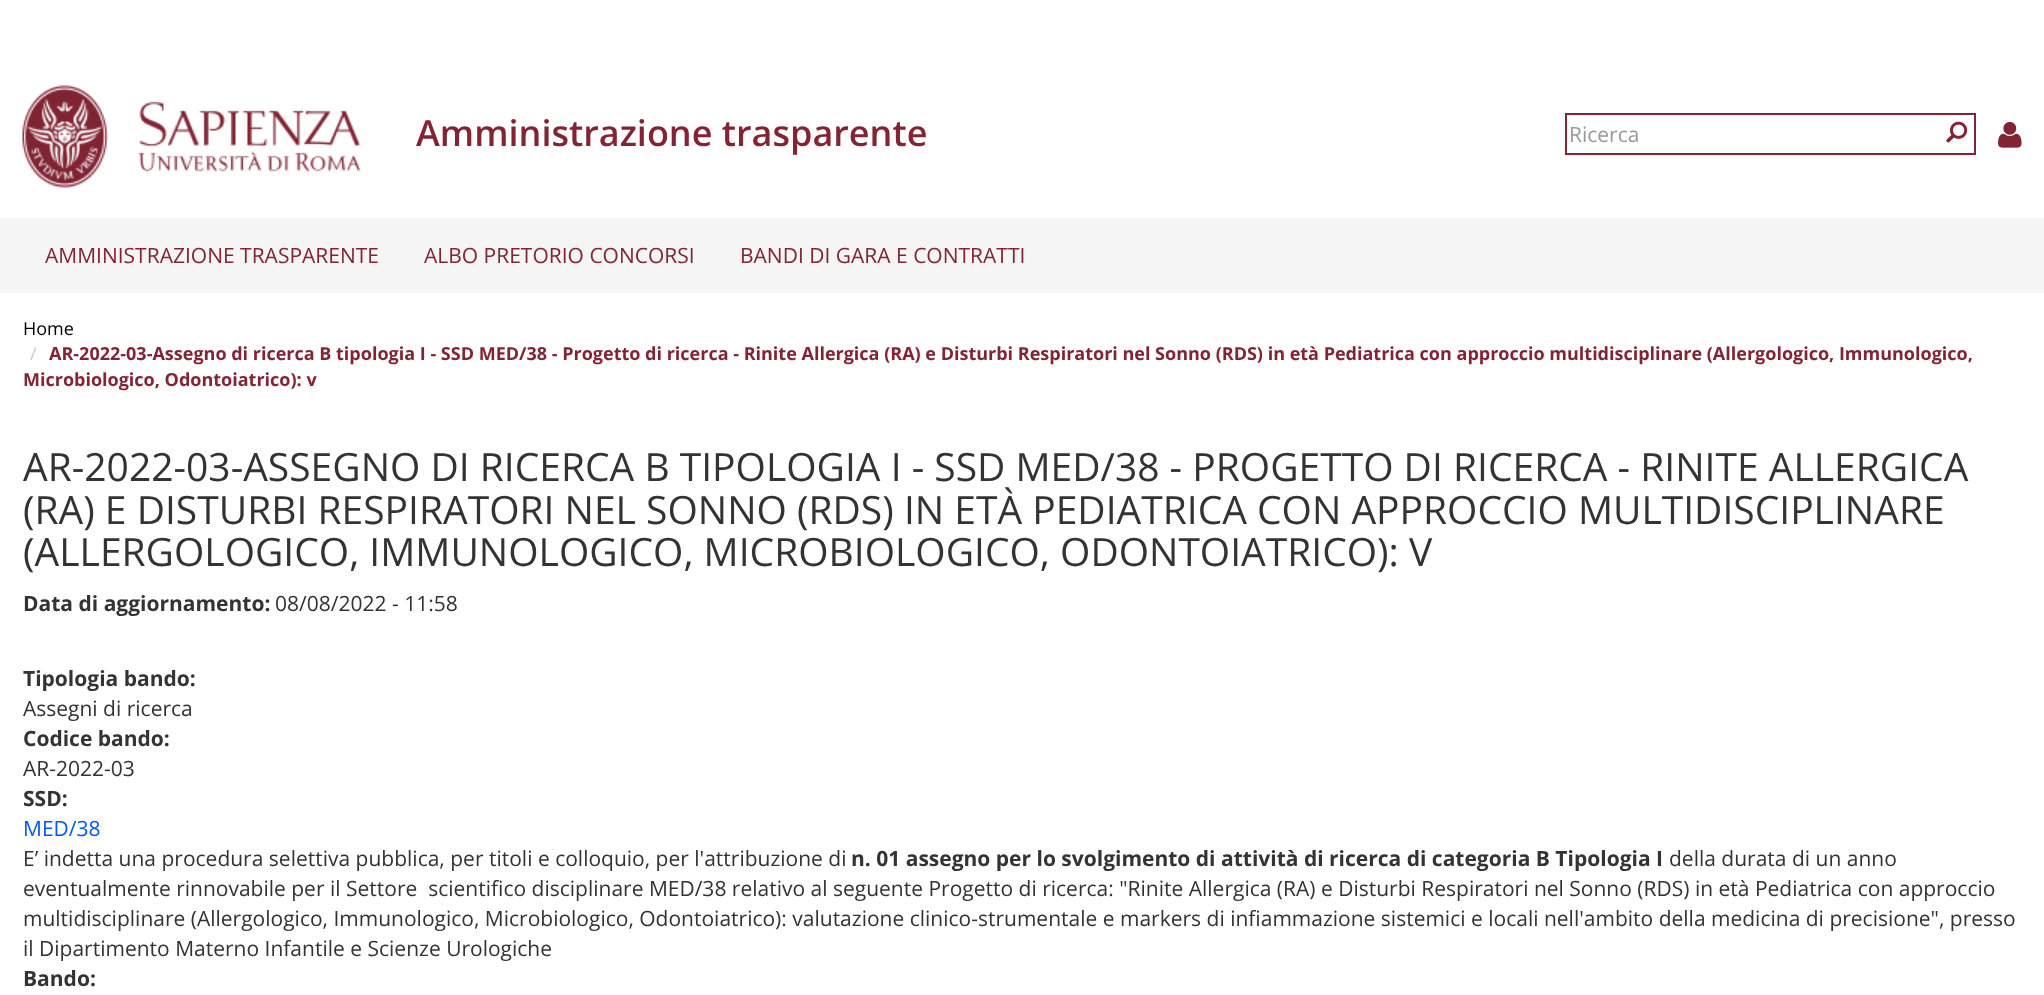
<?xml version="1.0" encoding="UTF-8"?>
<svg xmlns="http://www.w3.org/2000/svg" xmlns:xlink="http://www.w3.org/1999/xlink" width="2044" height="995">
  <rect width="100%" height="100%" fill="#ffffff" />
  <image x="22" y="85" width="339" height="103" xlink:href="image1.png" />
  <rect x="1565" y="113" width="411" height="2" fill="#822433" />
  <rect x="1565" y="153" width="375" height="2" fill="#822433" />
  <rect x="1565" y="113" width="2" height="42" fill="#822433" />
  <rect x="1974" y="113" width="2" height="42" fill="#822433" />
  <rect x="1938" y="153" width="38" height="2" fill="#822433" />
  <image x="1946" y="121" width="22" height="22" xlink:href="image2.png" />
  <image x="1998" y="121" width="24" height="27" xlink:href="image3.png" />
  <rect y="218" width="2044" height="75" fill="#f5f5f5" />
  <text x="416" y="146" style="font-family: Open Sans; font-size: 36px; font-weight: 600; fill: #822433">Amministrazione trasparente</text>
  <text x="1569" y="142" style="font-family: Open Sans; font-size: 21px; fill: #999999">Ricerca</text>
  <text x="45" y="263" style="font-family: Open Sans; font-size: 21px; fill: #822433">AMMINISTRAZIONE TRASPARENTE</text>
  <text x="424" y="263" style="font-family: Open Sans; font-size: 21px; fill: #822433">ALBO PRETORIO CONCORSI</text>
  <text x="740" y="263" style="font-family: Open Sans; font-size: 21px; fill: #822433">BANDI DI GARA E CONTRATTI</text>
  <text x="23" y="335" style="font-family: Open Sans; font-size: 18px; fill: #000000">Home</text>
  <text x="30" y="360" style="font-family: Open Sans; font-size: 18px; fill: #cccccc">/</text>
  <text x="49" y="360" style="font-family: Open Sans; font-size: 18px; font-weight: bold; fill: #822433">AR-2022-03-Assegno di ricerca B tipologia I - SSD MED/38 - Progetto di ricerca - Rinite Allergica (RA) e Disturbi Respiratori nel Sonno (RDS) in età Pediatrica con approccio multidisciplinare (Allergologico, Immunologico,</text>
  <text x="23" y="386" style="font-family: Open Sans; font-size: 18px; font-weight: bold; fill: #822433">Microbiologico, Odontoiatrico): v</text>
  <text x="23" y="481" style="font-family: Open Sans; font-size: 39px; fill: #333333">AR-2022-03-ASSEGNO DI RICERCA B TIPOLOGIA I - SSD MED/38 - PROGETTO DI RICERCA - RINITE ALLERGICA</text>
  <text x="23" y="524" style="font-family: Open Sans; font-size: 39px; fill: #333333">(RA) E DISTURBI RESPIRATORI NEL SONNO (RDS) IN ETÀ PEDIATRICA CON APPROCCIO MULTIDISCIPLINARE</text>
  <text x="23" y="566" style="font-family: Open Sans; font-size: 39px; fill: #333333">(ALLERGOLOGICO, IMMUNOLOGICO, MICROBIOLOGICO, ODONTOIATRICO): V</text>
  <text x="23" y="611" style="font-family: Open Sans; font-size: 21px; font-weight: bold; fill: #333333">Data di aggiornamento:</text>
  <text x="275" y="611" style="font-family: Open Sans; font-size: 21px; fill: #333333">08/08/2022 - 11:58</text>
  <text x="23" y="686" style="font-family: Open Sans; font-size: 21px; font-weight: bold; fill: #333333">Tipologia bando:</text>
  <text x="23" y="716" style="font-family: Open Sans; font-size: 21px; fill: #333333">Assegni di ricerca</text>
  <text x="23" y="746" style="font-family: Open Sans; font-size: 21px; font-weight: bold; fill: #333333">Codice bando:</text>
  <text x="23" y="776" style="font-family: Open Sans; font-size: 21px; fill: #333333">AR-2022-03</text>
  <text x="23" y="806" style="font-family: Open Sans; font-size: 21px; font-weight: bold; fill: #333333">SSD:</text>
  <text x="23" y="836" style="font-family: Open Sans; font-size: 21px; fill: #0058ff">MED/38</text>
  <text x="23" y="866" style="font-family: Open Sans; font-size: 21px; fill: #333333">E’ indetta una procedura selettiva pubblica, per titoli e colloquio, per l'attribuzione di</text>
  <text x="851" y="866" style="font-family: Open Sans; font-size: 21px; font-weight: bold; fill: #333333">n. 01 assegno per lo svolgimento di attività di ricerca di categoria B Tipologia I</text>
  <text x="1669" y="866" style="font-family: Open Sans; font-size: 21px; fill: #333333">della durata di un anno</text>
  <text x="23" y="896" style="font-family: Open Sans; font-size: 21px; fill: #333333" xml:space="preserve">eventualmente rinnovabile per il Settore  scientifico disciplinare MED/38 relativo al seguente Progetto di ricerca: "Rinite Allergica (RA) e Disturbi Respiratori nel Sonno (RDS) in età Pediatrica con approccio</text>
  <text x="23" y="926" style="font-family: Open Sans; font-size: 21px; fill: #333333">multidisciplinare (Allergologico, Immunologico, Microbiologico, Odontoiatrico): valutazione clinico-strumentale e markers di infiammazione sistemici e locali nell'ambito della medicina di precisione", presso</text>
  <text x="23" y="956" style="font-family: Open Sans; font-size: 21px; fill: #333333">il Dipartimento Materno Infantile e Scienze Urologiche</text>
  <text x="23" y="986" style="font-family: Open Sans; font-size: 21px; font-weight: bold; fill: #333333">Bando:</text>
</svg>
